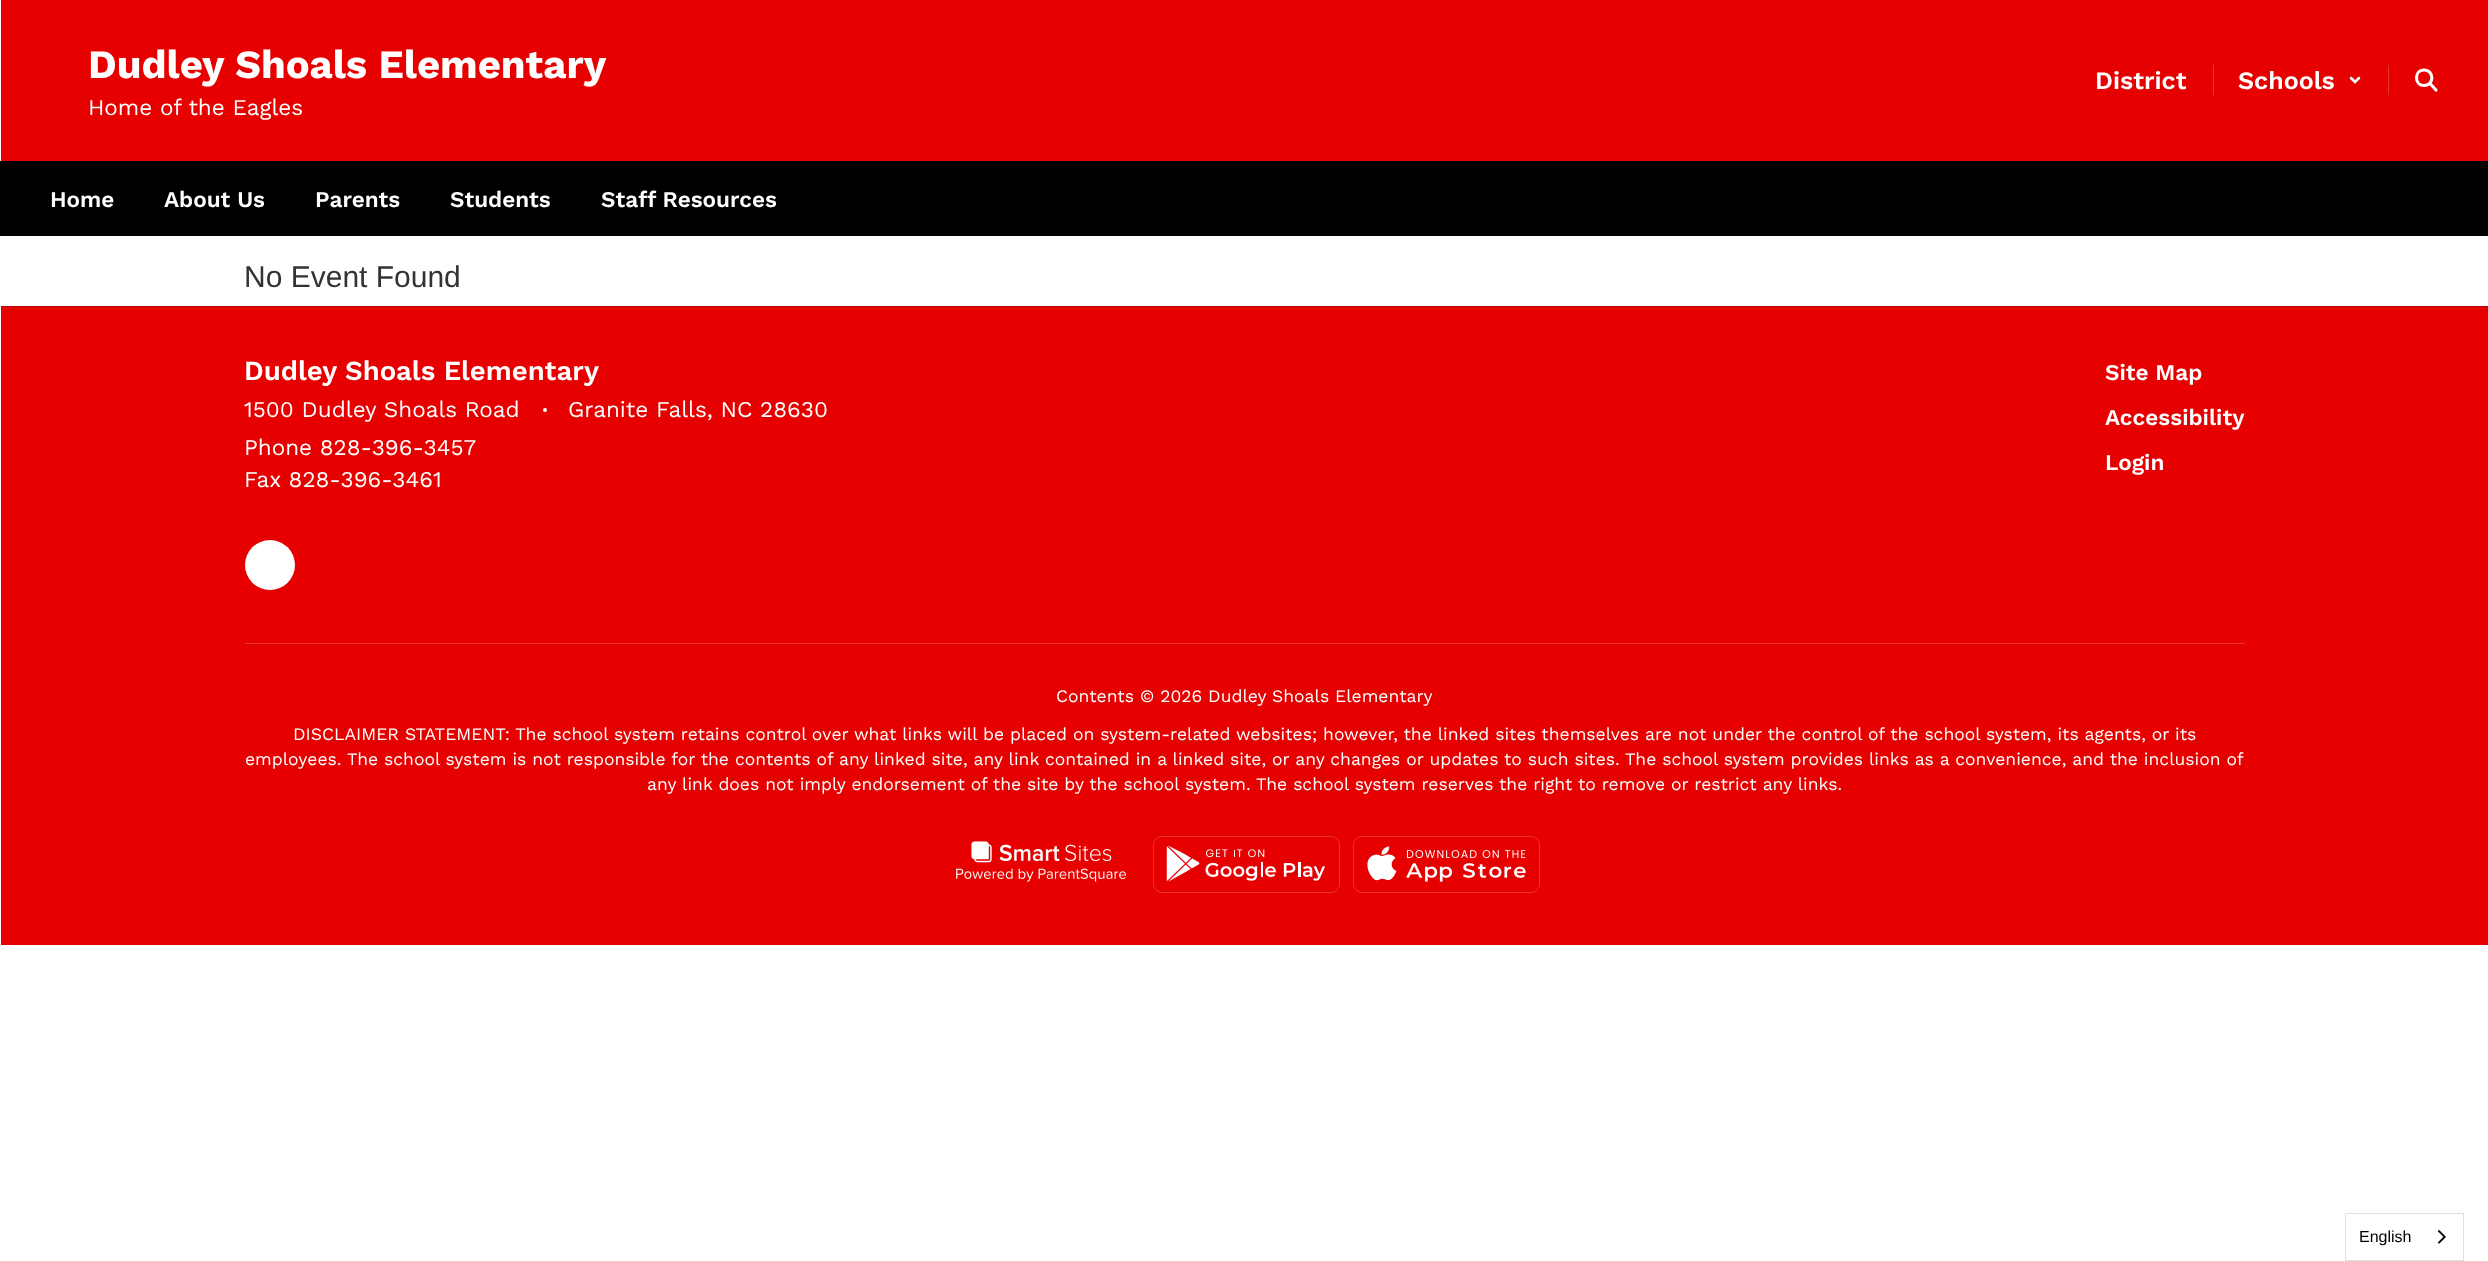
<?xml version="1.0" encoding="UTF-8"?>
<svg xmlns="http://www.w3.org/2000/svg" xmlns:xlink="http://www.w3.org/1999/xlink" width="2488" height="1261">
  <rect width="100%" height="100%" fill="#ffffff" />
  <rect x="1" width="2487" height="161" fill="#e60000" />
  <rect x="2213" y="65" width="1" height="30" fill="#eb3333" />
  <rect x="2388" y="65" width="1" height="30" fill="#eb3333" />
  <path d="M 2351 78 l 4 4 l 4 -4" fill="none" stroke="#ffffff" stroke-width="2.5" stroke-linecap="round" />
  <path d="M 2424 85.5 c 10.5 0 10.5 -15.5 0 -15.5 c -10 0 -10 15.5 0 15.5 z" fill="none" stroke="#ffffff" stroke-width="3.1" stroke-linecap="square" stroke-linejoin="round" />
  <path d="M 2436 90 l -6 -6.5" fill="none" stroke="#ffffff" stroke-width="3.1" stroke-linecap="round" stroke-linejoin="round" />
  <rect y="161" width="2488" height="75" fill="#000000" />
  <rect x="1" y="306" width="2487" height="1" fill="#b80000" />
  <rect x="1" y="307" width="2487" height="638" fill="#e60000" />
  <circle cx="545" cy="410" r="2" fill="#ffffff" />
  <circle cx="270" cy="565" r="25" fill="#ffffff" />
  <rect x="245" y="643" width="2000" height="1" fill="#eb3333" />
  <image x="956" y="841" width="171" height="41" xlink:href="image1.png" />
  <rect x="1153.5" y="836.5" width="186" height="56" rx="8.5" fill="none" stroke="#eb3333" />
  <image x="1166" y="845" width="159" height="37" xlink:href="image2.png" />
  <rect x="1353.5" y="836.5" width="186" height="56" rx="8.5" fill="none" stroke="#eb3333" />
  <image x="1367" y="846" width="159" height="36" xlink:href="image3.png" />
  <rect x="2345.5" y="1213.5" width="118" height="47" fill="none" stroke="#e0e0e0" />
  <image x="2437" y="1230" width="9" height="14" xlink:href="image4.png" />
  <text x="88" y="78" style="font-family: Work Sans; font-size: 40px; font-weight: bold; fill: #ffffff">Dudley Shoals Elementary</text>
  <text x="88" y="115" style="font-family: Work Sans; font-size: 22.5px; fill: #ffffff">Home of the Eagles</text>
  <text x="2095" y="89" style="font-family: Work Sans; font-size: 25px; font-weight: 600; fill: #ffffff">District</text>
  <text x="2238" y="89" style="font-family: Work Sans; font-size: 25px; font-weight: 600; fill: #ffffff">Schools</text>
  <text x="50" y="207" style="font-family: Work Sans; font-size: 22.5px; font-weight: 600; fill: #ffffff">Home</text>
  <text x="164" y="207" style="font-family: Work Sans; font-size: 22.5px; font-weight: 600; fill: #ffffff">About Us</text>
  <text x="315" y="207" style="font-family: Work Sans; font-size: 22.5px; font-weight: 600; fill: #ffffff">Parents</text>
  <text x="450" y="207" style="font-family: Work Sans; font-size: 22.5px; font-weight: 600; fill: #ffffff">Students</text>
  <text x="601" y="207" style="font-family: Work Sans; font-size: 22.5px; font-weight: 600; fill: #ffffff">Staff Resources</text>
  <text x="244" y="287" style="font-family: Liberation Sans; font-size: 30px; fill: #333333">No Event Found</text>
  <text x="244" y="380" style="font-family: Work Sans; font-size: 27.5px; font-weight: 600; fill: #ffffff">Dudley Shoals Elementary</text>
  <text x="244" y="417" style="font-family: Work Sans; font-size: 22.5px; fill: #ffffff">1500 Dudley Shoals Road</text>
  <text x="568" y="417" style="font-family: Work Sans; font-size: 22.5px; fill: #ffffff">Granite Falls, NC 28630</text>
  <text x="244" y="455" style="font-family: Work Sans; font-size: 22.5px; fill: #ffffff">Phone 828-396-3457</text>
  <text x="244" y="487" style="font-family: Work Sans; font-size: 22.5px; fill: #ffffff">Fax 828-396-3461</text>
  <text x="2105" y="380" style="font-family: Work Sans; font-size: 22.5px; font-weight: 600; fill: #ffffff">Site Map</text>
  <text x="2105" y="425" style="font-family: Work Sans; font-size: 22.5px; font-weight: 600; fill: #ffffff">Accessibility</text>
  <text x="2105" y="470" style="font-family: Work Sans; font-size: 22.5px; font-weight: 600; fill: #ffffff">Login</text>
  <text x="1056" y="702" style="font-family: Work Sans; font-size: 17.5px; fill: #ffffff">Contents © 2026 Dudley Shoals Elementary</text>
  <text x="293" y="740" style="font-family: Work Sans; font-size: 17.5px; fill: #ffffff">DISCLAIMER STATEMENT: The school system retains control over what links will be placed on system-related websites; however, the linked sites themselves are not under the control of the school system, its agents, or its</text>
  <text x="245" y="765" style="font-family: Work Sans; font-size: 17.5px; fill: #ffffff">employees. The school system is not responsible for the contents of any linked site, any link contained in a linked site, or any changes or updates to such sites. The school system provides links as a convenience, and the inclusion of</text>
  <text x="647" y="790" style="font-family: Work Sans; font-size: 17.5px; fill: #ffffff">any link does not imply endorsement of the site by the school system. The school system reserves the right to remove or restrict any links.</text>
  <text x="2359" y="1242" style="font-family: Liberation Sans; font-size: 16px; fill: #000000">English</text>
</svg>
